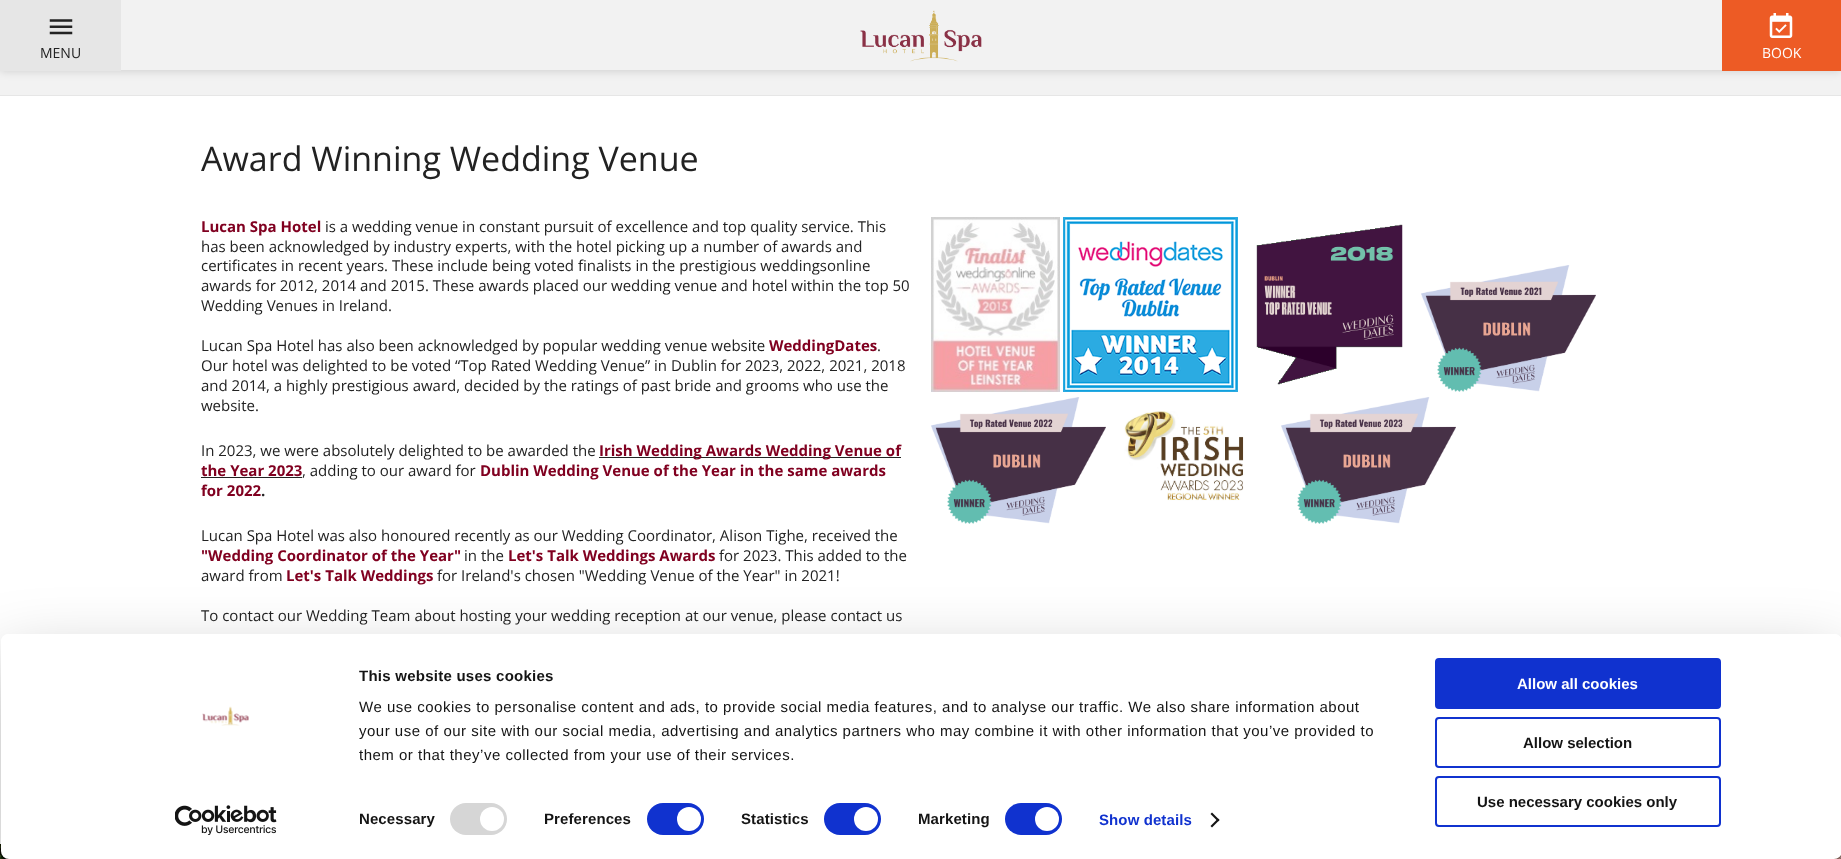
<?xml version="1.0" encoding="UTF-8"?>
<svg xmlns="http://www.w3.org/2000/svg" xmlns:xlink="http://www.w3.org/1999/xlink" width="1841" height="859">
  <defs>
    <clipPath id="clip1"><path d="M 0 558 h 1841 v 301 h -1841 z m 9 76 h 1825 c 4.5 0 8 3.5 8 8 v 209 c 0 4.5 -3.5 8 -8 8 h -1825 c -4.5 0 -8 -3.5 -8 -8 v -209 c 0 -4.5 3.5 -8 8 -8 z" clip-rule="evenodd" /></clipPath>
    <clipPath id="clip2"><rect x="359" y="664" width="1048" height="103" /></clipPath>
  </defs>
  <rect width="100%" height="100%" fill="#ffffff" />
  <rect y="70" width="1841" height="25" fill="#f2f2f2" />
  <rect y="1" width="1841" height="70" fill="#000000" fill-opacity="0.15" filter="blur(5px)" />
  <rect x="121" width="1601" height="70" fill="#f2f2f2" />
  <rect width="121" height="71" fill="#e6e6e6" />
  <image x="49" y="19" width="24" height="16" xlink:href="image1.png" />
  <image x="860" y="10" width="122" height="52" xlink:href="image2.png" />
  <rect x="1722" width="119" height="71" fill="#ed5b25" />
  <image x="1769" y="13" width="24" height="25" xlink:href="image3.png" />
  <rect y="95" width="1841" height="1" fill="#e6e6e6" />
  <image x="931" y="217" width="129" height="175" xlink:href="image4.png" />
  <image x="1063" y="217" width="175" height="175" xlink:href="image5.png" />
  <image x="1256" y="224" width="147" height="161" xlink:href="image6.png" />
  <image x="1421" y="265" width="175" height="127" xlink:href="image7.png" />
  <image x="931" y="397" width="175" height="127" xlink:href="image8.png" />
  <image x="1124" y="411" width="120" height="90" xlink:href="image9.png" />
  <image x="1281" y="397" width="175" height="127" xlink:href="image10.png" />
  <rect x="599" y="457" width="302" height="1" fill="#222222" />
  <rect x="201" y="477" width="101" height="1" fill="#222222" />
  <image x="0" y="844" width="9" height="15" xlink:href="image11.png" />
  <image x="1834" y="854" width="7" height="5" xlink:href="image12.png" />
  <g clip-path="url(#clip1)">
    <rect x="1" y="664" width="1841" height="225" rx="8" fill="#000000" fill-opacity="0.3" filter="blur(35px)" />
  </g>
  <rect x="1" y="634" width="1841" height="225" rx="8" fill="#ffffff" />
  <image x="202" y="706" width="47" height="20" xlink:href="image13.png" />
  <image x="175" y="805" width="102" height="30" xlink:href="image14.png" />
  <rect x="450" y="803" width="57" height="32" rx="16" fill="#d6d6d6" />
  <circle cx="492" cy="819" r="12" fill="#ffffff" />
  <rect x="647" y="803" width="57" height="32" rx="16" fill="#1032cf" />
  <circle cx="689" cy="819" r="12" fill="#ffffff" />
  <rect x="824" y="803" width="57" height="32" rx="16" fill="#1032cf" />
  <circle cx="866" cy="819" r="12" fill="#ffffff" />
  <rect x="1005" y="803" width="57" height="32" rx="16" fill="#1032cf" />
  <circle cx="1047" cy="819" r="12" fill="#ffffff" />
  <path d="M 1212 812.5 l 7.5 7.5 l -1.5 1.5 l -7.5 -7.5 z" fill="#141414" />
  <path d="M 1218 818.5 l 1.5 1.5 l -7.5 7.5 l -1.5 -1.5 z" fill="#141414" />
  <rect x="1436" y="659" width="284" height="49" rx="3" fill="#1032cf" stroke="#1032cf" stroke-width="2" />
  <rect x="1436" y="718" width="284" height="49" rx="3" fill="none" stroke="#1032cf" stroke-width="2" />
  <rect x="1436" y="777" width="284" height="49" rx="3" fill="none" stroke="#1032cf" stroke-width="2" />
  <text x="40" y="58" style="font-family: Open Sans; font-size: 14px; fill: #222222">MENU</text>
  <text x="1762" y="58" style="font-family: Open Sans; font-size: 14px; fill: #ffffff">BOOK</text>
  <text x="201" y="171" style="font-family: Open Sans; font-size: 34px; fill: #222222">Award Winning Wedding Venue</text>
  <text x="201" y="232" style="font-family: Open Sans; font-size: 15px; font-weight: bold; fill: #800020">Lucan Spa Hotel</text>
  <text x="325" y="232" style="font-family: Open Sans; font-size: 15px; fill: #222222">is a wedding venue in constant pursuit of excellence and top quality service. This</text>
  <text x="201" y="252" style="font-family: Open Sans; font-size: 15px; fill: #222222">has been acknowledged by industry experts, with the hotel picking up a number of awards and</text>
  <text x="201" y="271" style="font-family: Open Sans; font-size: 15px; fill: #222222">certificates in recent years. These include being voted finalists in the prestigious weddingsonline</text>
  <text x="201" y="291" style="font-family: Open Sans; font-size: 15px; fill: #222222">awards for 2012, 2014 and 2015. These awards placed our wedding venue and hotel within the top 50</text>
  <text x="201" y="311" style="font-family: Open Sans; font-size: 15px; fill: #222222">Wedding Venues in Ireland.</text>
  <text x="201" y="351" style="font-family: Open Sans; font-size: 15px; fill: #222222">Lucan Spa Hotel has also been acknowledged by popular wedding venue website</text>
  <text x="769" y="351" style="font-family: Open Sans; font-size: 15px; font-weight: bold; fill: #800020">WeddingDates</text>
  <text x="877" y="351" style="font-family: Open Sans; font-size: 15px; fill: #222222">.</text>
  <text x="201" y="371" style="font-family: Open Sans; font-size: 15px; fill: #222222">Our hotel was delighted to be voted “Top Rated Wedding Venue” in Dublin for 2023, 2022, 2021, 2018</text>
  <text x="201" y="391" style="font-family: Open Sans; font-size: 15px; fill: #222222">and 2014, a highly prestigious award, decided by the ratings of past bride and grooms who use the</text>
  <text x="201" y="411" style="font-family: Open Sans; font-size: 15px; fill: #222222">website.</text>
  <text x="201" y="456" style="font-family: Open Sans; font-size: 15px; fill: #222222">In 2023, we were absolutely delighted to be awarded the</text>
  <text x="599" y="456" style="font-family: Open Sans; font-size: 15px; font-weight: bold; fill: #800020">Irish Wedding Awards Wedding Venue of</text>
  <text x="201" y="476" style="font-family: Open Sans; font-size: 15px; font-weight: bold; fill: #800020">the Year 2023</text>
  <text x="302" y="476" style="font-family: Open Sans; font-size: 15px; fill: #222222">, adding to our award for</text>
  <text x="480" y="476" style="font-family: Open Sans; font-size: 15px; font-weight: bold; fill: #800020">Dublin Wedding Venue of the Year in the same awards</text>
  <text x="201" y="496" style="font-family: Open Sans; font-size: 15px; font-weight: bold; fill: #800020">for 2022</text>
  <text x="261" y="496" style="font-family: Open Sans; font-size: 15px; font-weight: bold; fill: #222222">.</text>
  <text x="201" y="541" style="font-family: Open Sans; font-size: 15px; fill: #222222">Lucan Spa Hotel was also honoured recently as our Wedding Coordinator, Alison Tighe, received the</text>
  <text x="201" y="561" style="font-family: Open Sans; font-size: 15px; font-weight: bold; fill: #800020">"Wedding Coordinator of the Year"</text>
  <text x="464" y="561" style="font-family: Open Sans; font-size: 15px; fill: #222222">in the</text>
  <text x="508" y="561" style="font-family: Open Sans; font-size: 15px; font-weight: bold; fill: #800020">Let's Talk Weddings Awards</text>
  <text x="719" y="561" style="font-family: Open Sans; font-size: 15px; fill: #222222">for 2023. This added to the</text>
  <text x="201" y="581" style="font-family: Open Sans; font-size: 15px; fill: #222222">award from</text>
  <text x="286" y="581" style="font-family: Open Sans; font-size: 15px; font-weight: bold; fill: #800020">Let's Talk Weddings</text>
  <text x="437" y="581" style="font-family: Open Sans; font-size: 15px; fill: #222222">for Ireland's chosen "Wedding Venue of the Year" in 2021!</text>
  <text x="201" y="621" style="font-family: Open Sans; font-size: 15px; fill: #222222">To contact our Wedding Team about hosting your wedding reception at our venue, please contact us</text>
  <g clip-path="url(#clip2)">
    <text x="359" y="681" style="font-family: Liberation Sans; font-size: 15px; font-weight: bold; letter-spacing: 0.25px; fill: #141414">This website uses cookies</text>
  </g>
  <text x="359" y="712" style="font-family: Liberation Sans; font-size: 15px; letter-spacing: 0.5px; fill: #141414">We use cookies to personalise content and ads, to provide social media features, and to analyse our traffic. We also share information about</text>
  <text x="359" y="736" style="font-family: Liberation Sans; font-size: 15px; letter-spacing: 0.5px; fill: #141414">your use of our site with our social media, advertising and analytics partners who may combine it with other information that you’ve provided to</text>
  <text x="359" y="760" style="font-family: Liberation Sans; font-size: 15px; letter-spacing: 0.5px; fill: #141414">them or that they’ve collected from your use of their services.</text>
  <text x="359" y="824" style="font-family: Liberation Sans; font-size: 15px; font-weight: bold; letter-spacing: 0.1px; fill: #141414">Necessary</text>
  <text x="544" y="824" style="font-family: Liberation Sans; font-size: 15px; font-weight: bold; letter-spacing: 0.1px; fill: #141414">Preferences</text>
  <text x="741" y="824" style="font-family: Liberation Sans; font-size: 15px; font-weight: bold; letter-spacing: 0.1px; fill: #141414">Statistics</text>
  <text x="918" y="824" style="font-family: Liberation Sans; font-size: 15px; font-weight: bold; letter-spacing: 0.1px; fill: #141414">Marketing</text>
  <text x="1099" y="825" style="font-family: Liberation Sans; font-size: 15px; font-weight: bold; letter-spacing: 0.1px; fill: #1032cf">Show details</text>
  <text x="1517" y="689" style="font-family: Liberation Sans; font-size: 15px; font-weight: bold; fill: #ffffff">Allow all cookies</text>
  <text x="1523" y="748" style="font-family: Liberation Sans; font-size: 15px; font-weight: bold; fill: #141414">Allow selection</text>
  <text x="1477" y="807" style="font-family: Liberation Sans; font-size: 15px; font-weight: bold; fill: #141414">Use necessary cookies only</text>
</svg>
